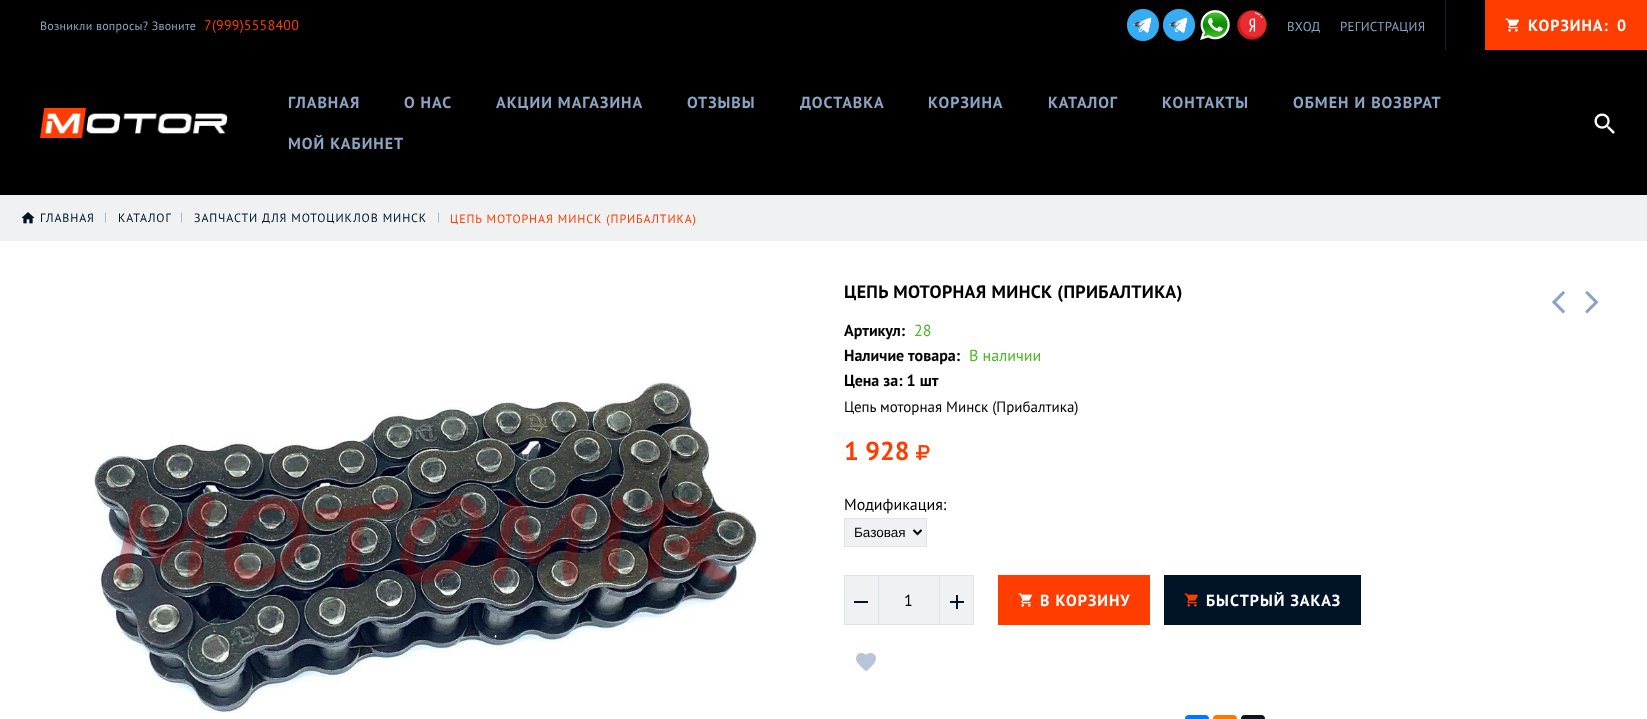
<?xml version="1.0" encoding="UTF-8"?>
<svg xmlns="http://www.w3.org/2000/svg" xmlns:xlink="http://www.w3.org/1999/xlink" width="1647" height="719">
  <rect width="100%" height="100%" fill="#ffffff" />
  <rect width="1647" height="195" fill="#000000" />
  <image x="1127" y="9" width="32" height="32" xlink:href="image1.png" />
  <image x="1163" y="9" width="32" height="32" xlink:href="image1.png" />
  <image x="1200" y="10" width="30" height="31" xlink:href="image2.png" />
  <image x="1237" y="10" width="30" height="30" xlink:href="image3.png" />
  <rect x="1445" width="1" height="50" fill="#022347" />
  <rect x="1485" width="162" height="50" fill="#ff3d00" />
  <image x="1505" y="18" width="14" height="14" xlink:href="image4.png" />
  <image x="40" y="108" width="188" height="30" xlink:href="image5.png" />
  <image x="1594" y="113" width="21" height="21" xlink:href="image6.png" />
  <rect y="195" width="1647" height="46" fill="#f0f1f2" />
  <image x="21" y="212" width="14" height="12" xlink:href="image7.png" />
  <image x="94" y="379" width="667" height="334" xlink:href="image8.png" />
  <image x="1552" y="291" width="13" height="23" xlink:href="image9.png" />
  <image x="1585" y="291" width="14" height="23" xlink:href="image10.png" />
  <image x="916" y="445" width="14" height="15" xlink:href="image11.png" />
  <rect x="844.5" y="518.5" width="82" height="28" fill="#f0f1f2" stroke="#dfe4eb" />
  <path d="M 913.5 530 l 4 4 l 4 -4" fill="none" stroke="#000000" stroke-width="2" />
  <rect x="844.5" y="575.5" width="129" height="49" fill="#f0f1f2" stroke="#dfe4eb" />
  <rect x="878" y="575" width="1" height="50" fill="#dfe4eb" />
  <rect x="854" y="601" width="14" height="2" fill="#011327" />
  <rect x="939" y="575" width="1" height="50" fill="#dfe4eb" />
  <image x="950" y="595" width="14" height="14" xlink:href="image12.png" />
  <rect x="998" y="575" width="152" height="50" fill="#ff3d00" />
  <image x="1018" y="593" width="14" height="14" xlink:href="image4.png" />
  <rect x="1164" y="575" width="197" height="50" fill="#011327" />
  <image x="1184" y="593" width="14" height="14" xlink:href="image13.png" />
  <image x="856" y="653" width="20" height="19" xlink:href="image14.png" />
  <rect x="1185" y="715" width="24" height="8" rx="4" fill="#0077ff" />
  <rect x="1213" y="715" width="24" height="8" rx="4" fill="#ff7700" />
  <rect x="1241" y="715" width="24" height="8" rx="4" fill="#0f1419" />
  <text x="40" y="30" style="font-family: PT Sans; font-size: 12px; letter-spacing: 0.25px; fill: #8aa4c1">Возникли вопросы? Звоните</text>
  <text x="204" y="30" style="font-family: PT Sans; font-size: 14px; letter-spacing: 0.25px; fill: #ff3d00">7(999)5558400</text>
  <text x="1287" y="31" style="font-family: PT Sans; font-size: 13px; letter-spacing: 0.25px; fill: #8aa4c1">ВХОД</text>
  <text x="1340" y="31" style="font-family: PT Sans; font-size: 13px; letter-spacing: 0.25px; fill: #8aa4c1">РЕГИСТРАЦИЯ</text>
  <text x="1528" y="31" style="font-family: PT Sans; font-size: 16px; font-weight: bold; letter-spacing: 1px; fill: #ffffff">КОРЗИНА:</text>
  <text x="1617" y="31" style="font-family: PT Sans; font-size: 16px; font-weight: bold; letter-spacing: 1px; fill: #ffffff">0</text>
  <text x="288" y="108" style="font-family: PT Sans; font-size: 16px; font-weight: bold; letter-spacing: 1px; fill: #8aa4c1">ГЛАВНАЯ</text>
  <text x="404" y="108" style="font-family: PT Sans; font-size: 16px; font-weight: bold; letter-spacing: 1px; fill: #8aa4c1">О НАС</text>
  <text x="496" y="108" style="font-family: PT Sans; font-size: 16px; font-weight: bold; letter-spacing: 1px; fill: #8aa4c1">АКЦИИ МАГАЗИНА</text>
  <text x="687" y="108" style="font-family: PT Sans; font-size: 16px; font-weight: bold; letter-spacing: 1px; fill: #8aa4c1">ОТЗЫВЫ</text>
  <text x="800" y="108" style="font-family: PT Sans; font-size: 16px; font-weight: bold; letter-spacing: 1px; fill: #8aa4c1">ДОСТАВКА</text>
  <text x="928" y="108" style="font-family: PT Sans; font-size: 16px; font-weight: bold; letter-spacing: 1px; fill: #8aa4c1">КОРЗИНА</text>
  <text x="1048" y="108" style="font-family: PT Sans; font-size: 16px; font-weight: bold; letter-spacing: 1px; fill: #8aa4c1">КАТАЛОГ</text>
  <text x="1162" y="108" style="font-family: PT Sans; font-size: 16px; font-weight: bold; letter-spacing: 1px; fill: #8aa4c1">КОНТАКТЫ</text>
  <text x="1293" y="108" style="font-family: PT Sans; font-size: 16px; font-weight: bold; letter-spacing: 1px; fill: #8aa4c1">ОБМЕН И ВОЗВРАТ</text>
  <text x="288" y="149" style="font-family: PT Sans; font-size: 16px; font-weight: bold; letter-spacing: 1px; fill: #8aa4c1">МОЙ КАБИНЕТ</text>
  <text x="40" y="222" style="font-family: PT Sans; font-size: 12px; letter-spacing: 0.9px; fill: #011327">ГЛАВНАЯ</text>
  <text x="104" y="221" style="font-family: PT Sans; font-size: 12px; letter-spacing: 0.9px; fill: #98aec7">|</text>
  <text x="118" y="222" style="font-family: PT Sans; font-size: 12px; letter-spacing: 0.9px; fill: #011327">КАТАЛОГ</text>
  <text x="180" y="221" style="font-family: PT Sans; font-size: 12px; letter-spacing: 0.9px; fill: #98aec7">|</text>
  <text x="194" y="222" style="font-family: PT Sans; font-size: 12px; letter-spacing: 0.9px; fill: #011327">ЗАПЧАСТИ ДЛЯ МОТОЦИКЛОВ МИНСК</text>
  <text x="437" y="221" style="font-family: PT Sans; font-size: 12px; letter-spacing: 0.9px; fill: #98aec7">|</text>
  <text x="450" y="223" style="font-family: PT Sans; font-size: 12px; letter-spacing: 0.9px; fill: #ff3d00">ЦЕПЬ МОТОРНАЯ МИНСК (ПРИБАЛТИКА)</text>
  <text x="844" y="298" style="font-family: PT Sans; font-size: 18px; font-weight: bold; letter-spacing: 0.35px; fill: #000000">ЦЕПЬ МОТОРНАЯ МИНСК (ПРИБАЛТИКА)</text>
  <text x="844" y="336" style="font-family: PT Sans; font-size: 16px; font-weight: bold; fill: #000000">Артикул:</text>
  <text x="914" y="336" style="font-family: PT Sans; font-size: 16px; fill: #4db725">28</text>
  <text x="844" y="361" style="font-family: PT Sans; font-size: 16px; font-weight: bold; fill: #000000">Наличие товара:</text>
  <text x="969" y="361" style="font-family: PT Sans; font-size: 16px; fill: #4db725">В наличии</text>
  <text x="844" y="386" style="font-family: PT Sans; font-size: 16px; font-weight: bold; fill: #000000">Цена за: 1 шт</text>
  <text x="844" y="412" style="font-family: PT Sans; font-size: 15px; fill: #000000">Цепь моторная Минск (Прибалтика)</text>
  <text x="844" y="460" style="font-family: PT Sans; font-size: 26px; font-weight: bold; fill: #ff3d00">1 928</text>
  <text x="844" y="510" style="font-family: PT Sans; font-size: 16px; fill: #000000">Модификация:</text>
  <text x="854" y="537" style="font-family: Liberation Sans; font-size: 13.5px; fill: #000000">Базовая</text>
  <text x="904" y="606" style="font-family: PT Sans; font-size: 16px; fill: #000000">1</text>
  <text x="1040" y="606" style="font-family: PT Sans; font-size: 16px; font-weight: bold; letter-spacing: 1px; fill: #ffffff">В КОРЗИНУ</text>
  <text x="1206" y="606" style="font-family: PT Sans; font-size: 16px; font-weight: bold; letter-spacing: 1px; fill: #ffffff">БЫСТРЫЙ ЗАКАЗ</text>
</svg>
